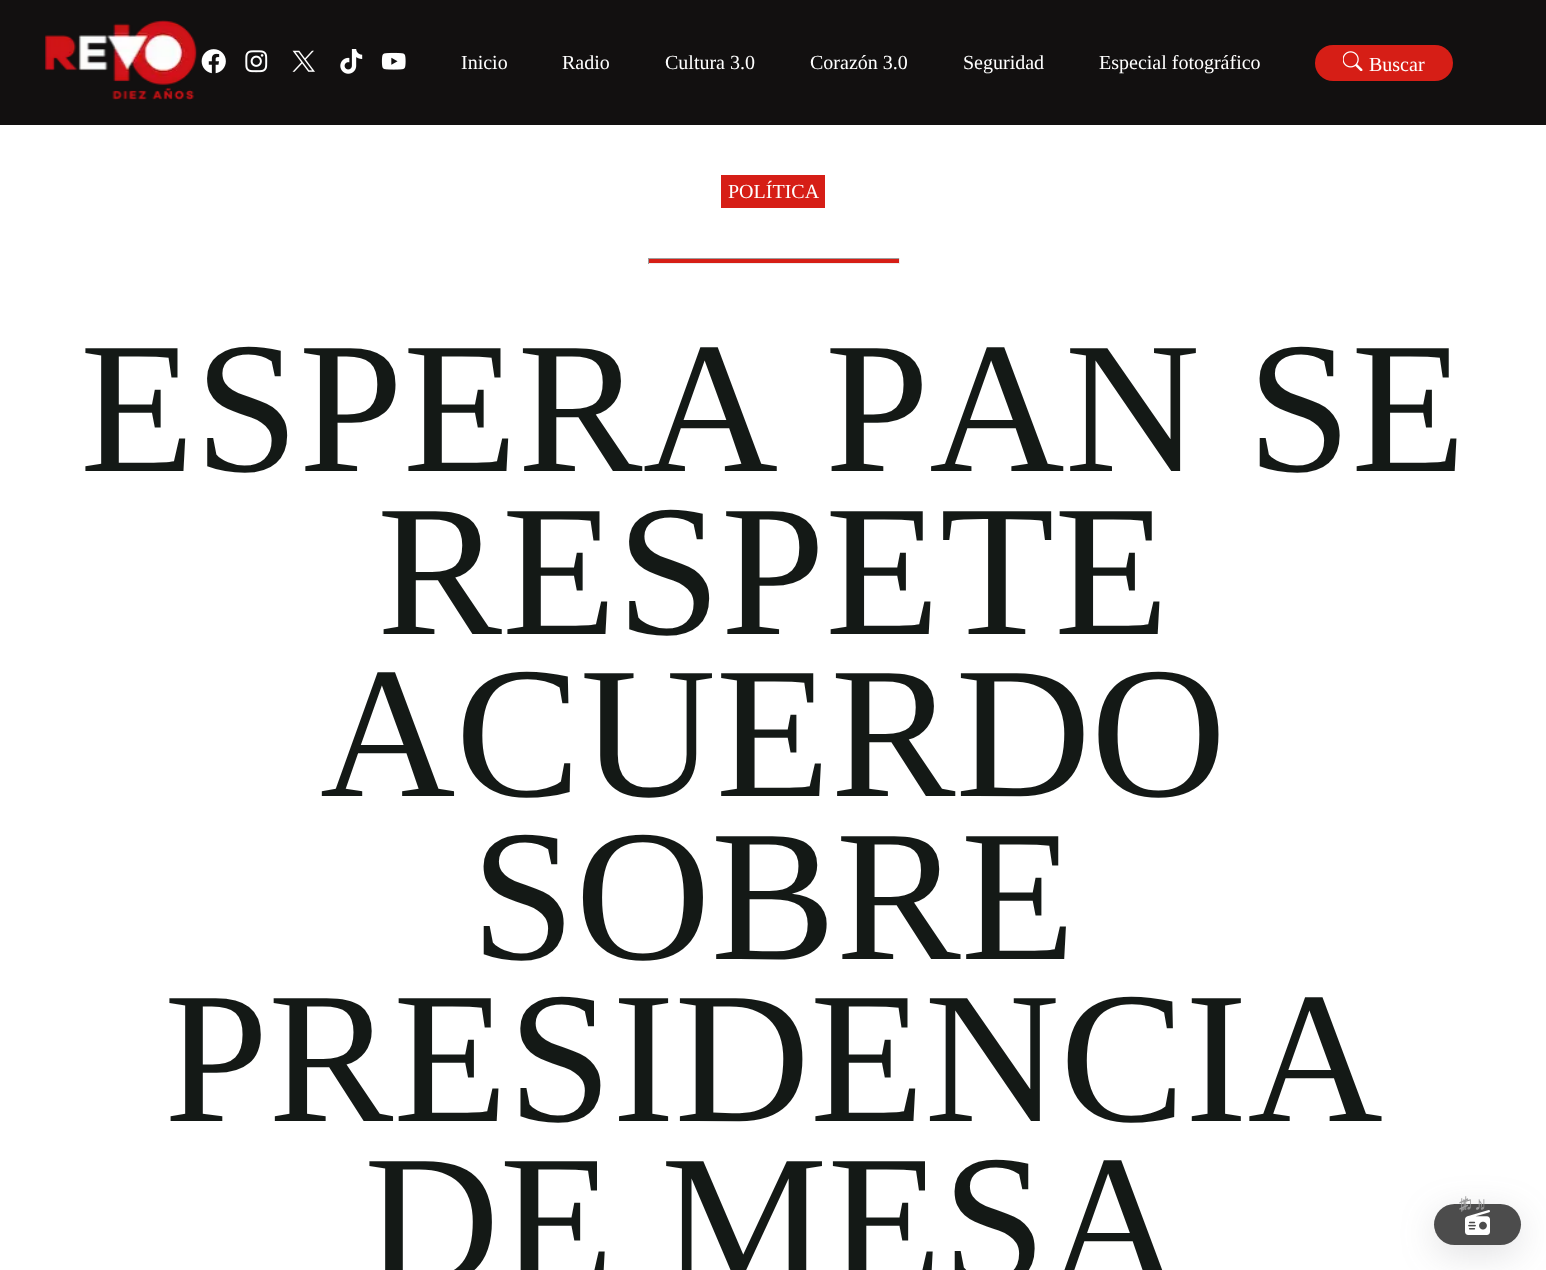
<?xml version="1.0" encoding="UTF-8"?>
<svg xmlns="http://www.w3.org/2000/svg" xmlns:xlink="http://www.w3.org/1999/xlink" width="1546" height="1270">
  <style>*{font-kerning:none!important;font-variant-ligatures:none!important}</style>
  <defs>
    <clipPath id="clip1"><path d="M 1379 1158 h 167 v 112 h -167 z m 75.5 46 h 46 c 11.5 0 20.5 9 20.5 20.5 c 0 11.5 -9 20.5 -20.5 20.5 h -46 c -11.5 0 -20.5 -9 -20.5 -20.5 c 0 -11.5 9 -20.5 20.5 -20.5 z" clip-rule="evenodd" /></clipPath>
  </defs>
  <rect width="100%" height="100%" fill="#ffffff" />
  <rect width="1546" height="125" fill="#121010" />
  <image x="45" y="20" width="153" height="80" xlink:href="image1.png" />
  <image x="201" y="49" width="25" height="25" xlink:href="image2.png" />
  <image x="245" y="50" width="23" height="23" xlink:href="image3.png" />
  <image x="292" y="50" width="23" height="22" xlink:href="image4.png" />
  <image x="340" y="49" width="23" height="25" xlink:href="image5.png" />
  <image x="381" y="52" width="25" height="18" xlink:href="image6.png" />
  <rect x="1315" y="45" width="138" height="36" rx="18" fill="#d61e16" />
  <image x="1343" y="51" width="20" height="20" xlink:href="image7.png" />
  <rect x="721" y="175" width="104" height="33" fill="#d61e16" />
  <rect x="648" y="259" width="252" height="4" fill="#d61e16" />
  <rect x="648" y="258" width="252" height="1" fill="#9f9f9f" />
  <rect x="899" y="258" width="1" height="6" fill="#eeeeee" />
  <rect x="648" y="263" width="252" height="1" fill="#eeeeee" />
  <rect x="648" y="258" width="1" height="6" fill="#9f9f9f" />
  <g clip-path="url(#clip1)">
    <rect x="1434" y="1213" width="87" height="41" rx="20.5" fill="#63636e" fill-opacity="0.2" filter="blur(18px)" />
  </g>
  <rect x="1434" y="1204" width="87" height="41" rx="20.5" fill="#000000" fill-opacity="0.7" />
  <image x="1465" y="1210" width="25" height="25" xlink:href="image8.png" />
  <text x="461" y="69" style="font-family: Liberation Serif; font-size: 20px; fill: #ffffff">Inicio</text>
  <text x="562" y="69" style="font-family: Liberation Serif; font-size: 20px; fill: #ffffff">Radio</text>
  <text x="665" y="69" style="font-family: Liberation Serif; font-size: 20px; fill: #ffffff">Cultura 3.0</text>
  <text x="810" y="69" style="font-family: Liberation Serif; font-size: 20px; fill: #ffffff">Corazón 3.0</text>
  <text x="963" y="69" style="font-family: Liberation Serif; font-size: 20px; fill: #ffffff">Seguridad</text>
  <text x="1099" y="69" style="font-family: Liberation Serif; font-size: 20px; fill: #ffffff">Especial fotográfico</text>
  <text x="1369" y="71" style="font-family: Liberation Serif; font-size: 20px; fill: #ffffff">Buscar</text>
  <text x="728" y="198" style="font-family: Liberation Serif; font-size: 20px; fill: #ffffff">POLÍTICA</text>
  <text x="80" y="471" style="font-family: Liberation Serif; font-size: 187.5px; fill: #141916">ESPERA PAN</text>
  <text x="1247" y="471" style="font-family: Liberation Serif; font-size: 187.5px; fill: #141916">SE</text>
  <text x="377" y="634" style="font-family: Liberation Serif; font-size: 187.5px; fill: #141916">RESPETE</text>
  <text x="320" y="796" style="font-family: Liberation Serif; font-size: 187.5px; fill: #141916">ACUERDO</text>
  <text x="471" y="959" style="font-family: Liberation Serif; font-size: 187.5px; fill: #141916">SOBRE</text>
  <text x="164" y="1121" style="font-family: Liberation Serif; font-size: 187.5px; fill: #141916">PRESIDENCIA</text>
  <text x="364" y="1284" style="font-family: Liberation Serif; font-size: 187.5px; fill: #141916">DE MESA</text>
  <text x="1459" y="1210" word-spacing="1" style="font-family: Liberation Serif; font-size: 19px; fill: #909090">♫ ♩</text>
  <text x="1459" y="1210" style="font-family: Liberation Serif; font-size: 19px; fill: #898989">♩</text>
  <text x="1459" y="1210" word-spacing="1" style="font-family: Liberation Serif; font-size: 19px; fill: #9d9d9e">♯ ♪</text>
</svg>
